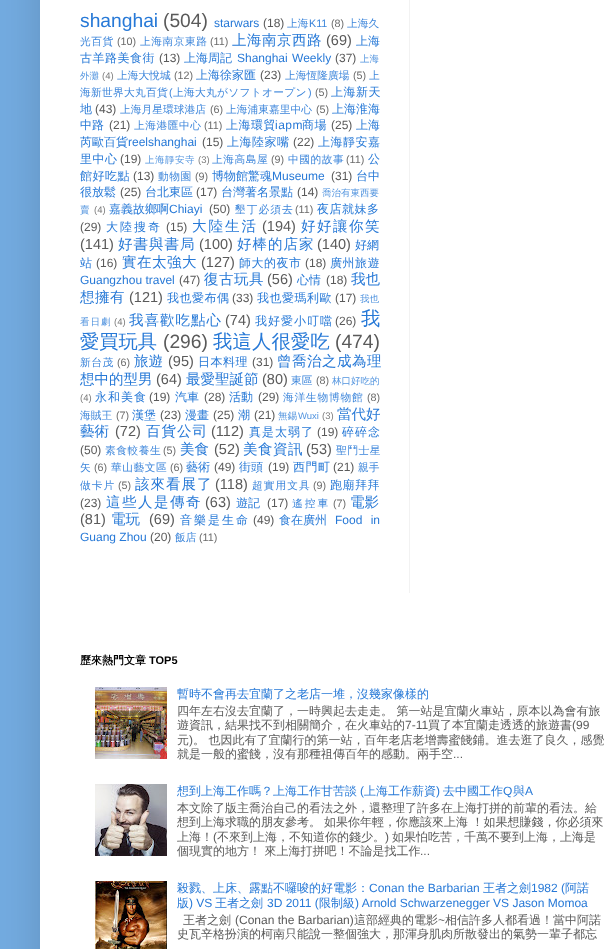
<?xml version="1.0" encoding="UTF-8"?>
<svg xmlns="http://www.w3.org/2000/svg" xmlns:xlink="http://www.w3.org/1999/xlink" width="616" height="949">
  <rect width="100%" height="100%" fill="#73abe0" />
  <rect x="40" y="-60" width="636" height="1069" fill="#000000" fill-opacity="0.15" filter="blur(20px)" />
  <rect x="40" width="576" height="949" fill="#ffffff" />
  <rect x="409" width="1" height="593" fill="#f2f2f2" />
  <image x="95" y="687" width="72" height="72" xlink:href="image1.png" />
  <image x="95" y="784" width="72" height="72" xlink:href="image2.png" />
  <image x="95" y="881" width="72" height="68" xlink:href="image3.png" />
  <text x="80" y="27" style="font-family: Liberation Sans; font-size: 19.25px; fill: #2779d7">shanghai</text>
  <text x="163" y="27" style="font-family: Liberation Sans; font-size: 19.25px; fill: #5a5a5a">(504)</text>
  <text x="214" y="27" style="font-family: Liberation Sans; font-size: 12px; fill: #2779d7">starwars</text>
  <text x="263" y="27" style="font-family: Liberation Sans; font-size: 12px; fill: #5a5a5a">(18)</text>
  <text x="287" y="27" style="font-family: WenQuanYi Zen Hei; font-size: 10.75px; font-weight: 500; fill: #3d86db">上海</text>
  <text x="309" y="27" style="font-family: Liberation Sans; font-size: 10.75px; fill: #3d86db">K11</text>
  <text x="331" y="27" style="font-family: Liberation Sans; font-size: 10.75px; fill: #6b6b6b">(8)</text>
  <text x="347" y="27" style="font-family: WenQuanYi Zen Hei; font-size: 10.75px; font-weight: 500; fill: #3d86db">上海久</text>
  <text x="80" y="45" style="font-family: WenQuanYi Zen Hei; font-size: 10.75px; font-weight: 500; letter-spacing: 0.5px; fill: #3d86db">光百貨</text>
  <text x="117" y="45" style="font-family: Liberation Sans; font-size: 10.75px; fill: #6b6b6b">(10)</text>
  <text x="140" y="45" style="font-family: WenQuanYi Zen Hei; font-size: 10.75px; font-weight: 500; letter-spacing: 0.5px; fill: #3d86db">上海南京東路</text>
  <text x="210" y="45" style="font-family: Liberation Sans; font-size: 10.75px; fill: #6b6b6b">(11)</text>
  <text x="232" y="45" style="font-family: WenQuanYi Zen Hei; font-size: 14.5px; font-weight: 500; letter-spacing: 0.5px; fill: #2779d7">上海南京西路</text>
  <text x="326" y="45" style="font-family: Liberation Sans; font-size: 14.5px; fill: #5a5a5a">(69)</text>
  <text x="356" y="45" style="font-family: WenQuanYi Zen Hei; font-size: 12px; font-weight: 500; fill: #2779d7">上海</text>
  <text x="80" y="62" style="font-family: WenQuanYi Zen Hei; font-size: 12px; font-weight: 500; letter-spacing: 0.5px; fill: #2779d7">古羊路美食街</text>
  <text x="159" y="62" style="font-family: Liberation Sans; font-size: 12px; fill: #5a5a5a">(13)</text>
  <text x="184" y="62" style="font-family: WenQuanYi Zen Hei; font-size: 12px; font-weight: 500; fill: #2779d7">上海周記</text>
  <text x="237" y="62" word-spacing="1" style="font-family: Liberation Sans; font-size: 12px; fill: #2779d7">Shanghai Weekly</text>
  <text x="335" y="62" style="font-family: Liberation Sans; font-size: 12px; fill: #5a5a5a">(37)</text>
  <text x="360" y="62" style="font-family: WenQuanYi Zen Hei; font-size: 9.5px; font-weight: 500; fill: #5294df">上海</text>
  <text x="80" y="79" style="font-family: WenQuanYi Zen Hei; font-size: 9.5px; font-weight: 500; fill: #5294df">外灘</text>
  <text x="102" y="79" style="font-family: Liberation Sans; font-size: 9.5px; fill: #7b7b7b">(4)</text>
  <text x="117" y="79" style="font-family: WenQuanYi Zen Hei; font-size: 10.75px; font-weight: 500; fill: #3d86db">上海大悅城</text>
  <text x="174" y="79" style="font-family: Liberation Sans; font-size: 10.75px; fill: #6b6b6b">(12)</text>
  <text x="196" y="79" style="font-family: WenQuanYi Zen Hei; font-size: 12px; font-weight: 500; fill: #2779d7">上海徐家匯</text>
  <text x="260" y="79" style="font-family: Liberation Sans; font-size: 12px; fill: #5a5a5a">(23)</text>
  <text x="285" y="79" style="font-family: WenQuanYi Zen Hei; font-size: 10.75px; font-weight: 500; fill: #3d86db">上海恆隆廣場</text>
  <text x="353" y="79" style="font-family: Liberation Sans; font-size: 10.75px; fill: #6b6b6b">(5)</text>
  <text x="369" y="79" style="font-family: WenQuanYi Zen Hei; font-size: 10.75px; font-weight: 500; fill: #3d86db">上</text>
  <text x="80" y="96" style="font-family: WenQuanYi Zen Hei; font-size: 10.75px; font-weight: 500; letter-spacing: 0.25px; fill: #3d86db">海新世界大丸百貨</text>
  <text x="169" y="96" style="font-family: Liberation Sans; font-size: 10.75px; letter-spacing: 0.25px; fill: #3d86db">(</text>
  <text x="173" y="96" style="font-family: WenQuanYi Zen Hei; font-size: 10.75px; font-weight: 500; letter-spacing: 0.25px; fill: #3d86db">上海大丸がソフトオープン</text>
  <text x="308" y="96" style="font-family: Liberation Sans; font-size: 10.75px; letter-spacing: 0.25px; fill: #3d86db">)</text>
  <text x="315" y="96" style="font-family: Liberation Sans; font-size: 10.75px; fill: #6b6b6b">(5)</text>
  <text x="331" y="96" style="font-family: WenQuanYi Zen Hei; font-size: 12px; font-weight: 500; letter-spacing: 0.5px; fill: #2779d7">上海新天</text>
  <text x="80" y="113" style="font-family: WenQuanYi Zen Hei; font-size: 12px; font-weight: 500; fill: #2779d7">地</text>
  <text x="95" y="113" style="font-family: Liberation Sans; font-size: 12px; fill: #5a5a5a">(43)</text>
  <text x="120" y="113" style="font-family: WenQuanYi Zen Hei; font-size: 10.75px; font-weight: 500; fill: #3d86db">上海月星環球港店</text>
  <text x="210" y="113" style="font-family: Liberation Sans; font-size: 10.75px; fill: #6b6b6b">(6)</text>
  <text x="226" y="113" style="font-family: WenQuanYi Zen Hei; font-size: 10.75px; font-weight: 500; fill: #3d86db">上海浦東嘉里中心</text>
  <text x="316" y="113" style="font-family: Liberation Sans; font-size: 10.75px; fill: #6b6b6b">(5)</text>
  <text x="332" y="113" style="font-family: WenQuanYi Zen Hei; font-size: 12px; font-weight: 500; fill: #2779d7">上海淮海</text>
  <text x="80" y="129" style="font-family: WenQuanYi Zen Hei; font-size: 12px; font-weight: 500; fill: #2779d7">中路</text>
  <text x="109" y="129" style="font-family: Liberation Sans; font-size: 12px; fill: #5a5a5a">(21)</text>
  <text x="134" y="129" style="font-family: WenQuanYi Zen Hei; font-size: 10.75px; font-weight: 500; letter-spacing: 0.5px; fill: #3d86db">上海港匯中心</text>
  <text x="204" y="129" style="font-family: Liberation Sans; font-size: 10.75px; fill: #6b6b6b">(11)</text>
  <text x="226" y="129" style="font-family: WenQuanYi Zen Hei; font-size: 12px; font-weight: 500; letter-spacing: 0.5px; fill: #2779d7">上海環貿</text>
  <text x="275" y="129" style="font-family: Liberation Sans; font-size: 12px; letter-spacing: 0.5px; fill: #2779d7">iapm</text>
  <text x="302" y="129" style="font-family: WenQuanYi Zen Hei; font-size: 12px; font-weight: 500; letter-spacing: 0.5px; fill: #2779d7">商場</text>
  <text x="331" y="129" style="font-family: Liberation Sans; font-size: 12px; fill: #5a5a5a">(25)</text>
  <text x="356" y="129" style="font-family: WenQuanYi Zen Hei; font-size: 12px; font-weight: 500; fill: #2779d7">上海</text>
  <text x="80" y="146" style="font-family: WenQuanYi Zen Hei; font-size: 12px; font-weight: 500; fill: #2779d7">芮歐百貨</text>
  <text x="128" y="146" style="font-family: Liberation Sans; font-size: 12px; fill: #2779d7">reelshanghai</text>
  <text x="202" y="146" style="font-family: Liberation Sans; font-size: 12px; fill: #5a5a5a">(15)</text>
  <text x="227" y="146" style="font-family: WenQuanYi Zen Hei; font-size: 12px; font-weight: 500; letter-spacing: 0.5px; fill: #2779d7">上海陸家嘴</text>
  <text x="293" y="146" style="font-family: Liberation Sans; font-size: 12px; fill: #5a5a5a">(22)</text>
  <text x="318" y="146" style="font-family: WenQuanYi Zen Hei; font-size: 12px; font-weight: 500; letter-spacing: 0.5px; fill: #2779d7">上海靜安嘉</text>
  <text x="80" y="163" style="font-family: WenQuanYi Zen Hei; font-size: 12px; font-weight: 500; letter-spacing: 0.5px; fill: #2779d7">里中心</text>
  <text x="120" y="163" style="font-family: Liberation Sans; font-size: 12px; fill: #5a5a5a">(19)</text>
  <text x="145" y="163" style="font-family: WenQuanYi Zen Hei; font-size: 9.5px; font-weight: 500; letter-spacing: 0.5px; fill: #5294df">上海靜安寺</text>
  <text x="198" y="163" style="font-family: Liberation Sans; font-size: 9.5px; fill: #7b7b7b">(3)</text>
  <text x="212" y="163" style="font-family: WenQuanYi Zen Hei; font-size: 10.75px; font-weight: 500; letter-spacing: 0.5px; fill: #3d86db">上海高島屋</text>
  <text x="271" y="163" style="font-family: Liberation Sans; font-size: 10.75px; fill: #6b6b6b">(9)</text>
  <text x="288" y="163" style="font-family: WenQuanYi Zen Hei; font-size: 10.75px; font-weight: 500; letter-spacing: 0.5px; fill: #3d86db">中國的故事</text>
  <text x="346" y="163" style="font-family: Liberation Sans; font-size: 10.75px; fill: #6b6b6b">(11)</text>
  <text x="368" y="163" style="font-family: WenQuanYi Zen Hei; font-size: 12px; font-weight: 500; fill: #2779d7">公</text>
  <text x="80" y="180" style="font-family: WenQuanYi Zen Hei; font-size: 12px; font-weight: 500; letter-spacing: 0.5px; fill: #2779d7">館好吃點</text>
  <text x="133" y="180" style="font-family: Liberation Sans; font-size: 12px; fill: #5a5a5a">(13)</text>
  <text x="158" y="180" style="font-family: WenQuanYi Zen Hei; font-size: 10.75px; font-weight: 500; letter-spacing: 0.5px; fill: #3d86db">動物園</text>
  <text x="195" y="180" style="font-family: Liberation Sans; font-size: 10.75px; fill: #6b6b6b">(9)</text>
  <text x="212" y="180" style="font-family: WenQuanYi Zen Hei; font-size: 12px; font-weight: 500; fill: #2779d7">博物館驚魂</text>
  <text x="272" y="180" style="font-family: Liberation Sans; font-size: 12px; fill: #2779d7">Museume</text>
  <text x="331" y="180" style="font-family: Liberation Sans; font-size: 12px; fill: #5a5a5a">(31)</text>
  <text x="356" y="180" style="font-family: WenQuanYi Zen Hei; font-size: 12px; font-weight: 500; fill: #2779d7">台中</text>
  <text x="80" y="196" style="font-family: WenQuanYi Zen Hei; font-size: 12px; font-weight: 500; fill: #2779d7">很放鬆</text>
  <text x="120" y="196" style="font-family: Liberation Sans; font-size: 12px; fill: #5a5a5a">(25)</text>
  <text x="145" y="196" style="font-family: WenQuanYi Zen Hei; font-size: 12px; font-weight: 500; fill: #2779d7">台北東區</text>
  <text x="196" y="196" style="font-family: Liberation Sans; font-size: 12px; fill: #5a5a5a">(17)</text>
  <text x="221" y="196" style="font-family: WenQuanYi Zen Hei; font-size: 12px; font-weight: 500; fill: #2779d7">台灣著名景點</text>
  <text x="297" y="196" style="font-family: Liberation Sans; font-size: 12px; fill: #5a5a5a">(14)</text>
  <text x="322" y="196" style="font-family: WenQuanYi Zen Hei; font-size: 9.5px; font-weight: 500; fill: #5294df">喬治有東西要</text>
  <text x="80" y="213" style="font-family: WenQuanYi Zen Hei; font-size: 9.5px; font-weight: 500; fill: #5294df">賣</text>
  <text x="94" y="213" style="font-family: Liberation Sans; font-size: 9.5px; fill: #7b7b7b">(4)</text>
  <text x="109" y="213" style="font-family: WenQuanYi Zen Hei; font-size: 12px; font-weight: 500; fill: #2779d7">嘉義故鄉啊</text>
  <text x="169" y="213" style="font-family: Liberation Sans; font-size: 12px; fill: #2779d7">Chiayi</text>
  <text x="209" y="213" style="font-family: Liberation Sans; font-size: 12px; fill: #5a5a5a">(50)</text>
  <text x="235" y="213" style="font-family: WenQuanYi Zen Hei; font-size: 10.75px; font-weight: 500; letter-spacing: 1px; fill: #3d86db">墾丁必須去</text>
  <text x="295" y="213" style="font-family: Liberation Sans; font-size: 10.75px; fill: #6b6b6b">(11)</text>
  <text x="317" y="213" style="font-family: WenQuanYi Zen Hei; font-size: 12px; font-weight: 500; letter-spacing: 0.5px; fill: #2779d7">夜店就妹多</text>
  <text x="80" y="231" style="font-family: Liberation Sans; font-size: 12px; fill: #5a5a5a">(29)</text>
  <text x="106" y="231" style="font-family: WenQuanYi Zen Hei; font-size: 12px; font-weight: 500; letter-spacing: 2px; fill: #2779d7">大陸搜奇</text>
  <text x="166" y="231" style="font-family: Liberation Sans; font-size: 12px; fill: #5a5a5a">(15)</text>
  <text x="192" y="231" style="font-family: WenQuanYi Zen Hei; font-size: 14.5px; font-weight: 500; letter-spacing: 2px; fill: #2779d7">大陸生活</text>
  <text x="262" y="231" style="font-family: Liberation Sans; font-size: 14.5px; fill: #5a5a5a">(194)</text>
  <text x="301" y="231" style="font-family: WenQuanYi Zen Hei; font-size: 14.5px; font-weight: 500; letter-spacing: 1.5px; fill: #2779d7">好好讓你笑</text>
  <text x="80" y="249" style="font-family: Liberation Sans; font-size: 14.5px; fill: #5a5a5a">(141)</text>
  <text x="118" y="249" style="font-family: WenQuanYi Zen Hei; font-size: 14.5px; font-weight: 500; letter-spacing: 1px; fill: #2779d7">好書與書局</text>
  <text x="199" y="249" style="font-family: Liberation Sans; font-size: 14.5px; fill: #5a5a5a">(100)</text>
  <text x="237" y="249" style="font-family: WenQuanYi Zen Hei; font-size: 14.5px; font-weight: 500; letter-spacing: 1px; fill: #2779d7">好棒的店家</text>
  <text x="317" y="249" style="font-family: Liberation Sans; font-size: 14.5px; fill: #5a5a5a">(140)</text>
  <text x="355" y="249" style="font-family: WenQuanYi Zen Hei; font-size: 12px; font-weight: 500; fill: #2779d7">好網</text>
  <text x="80" y="267" style="font-family: WenQuanYi Zen Hei; font-size: 12px; font-weight: 500; fill: #2779d7">站</text>
  <text x="96" y="267" style="font-family: Liberation Sans; font-size: 12px; fill: #5a5a5a">(16)</text>
  <text x="122" y="267" style="font-family: WenQuanYi Zen Hei; font-size: 14.5px; font-weight: 500; letter-spacing: 0.5px; fill: #2779d7">實在太強大</text>
  <text x="201" y="267" style="font-family: Liberation Sans; font-size: 14.5px; fill: #5a5a5a">(127)</text>
  <text x="239" y="267" style="font-family: WenQuanYi Zen Hei; font-size: 12px; font-weight: 500; letter-spacing: 0.5px; fill: #2779d7">師大的夜市</text>
  <text x="305" y="267" style="font-family: Liberation Sans; font-size: 12px; fill: #5a5a5a">(18)</text>
  <text x="330" y="267" style="font-family: WenQuanYi Zen Hei; font-size: 12px; font-weight: 500; letter-spacing: 0.5px; fill: #2779d7">廣州旅遊</text>
  <text x="80" y="284" style="font-family: Liberation Sans; font-size: 12px; fill: #2779d7">Guangzhou travel</text>
  <text x="179" y="284" style="font-family: Liberation Sans; font-size: 12px; fill: #5a5a5a">(47)</text>
  <text x="204" y="284" style="font-family: WenQuanYi Zen Hei; font-size: 14.5px; font-weight: 500; letter-spacing: 0.5px; fill: #2779d7">復古玩具</text>
  <text x="267" y="284" style="font-family: Liberation Sans; font-size: 14.5px; fill: #5a5a5a">(56)</text>
  <text x="297" y="284" style="font-family: WenQuanYi Zen Hei; font-size: 12px; font-weight: 500; fill: #2779d7">心情</text>
  <text x="326" y="284" style="font-family: Liberation Sans; font-size: 12px; fill: #5a5a5a">(18)</text>
  <text x="351" y="284" style="font-family: WenQuanYi Zen Hei; font-size: 14.5px; font-weight: 500; fill: #2779d7">我也</text>
  <text x="80" y="302" style="font-family: WenQuanYi Zen Hei; font-size: 14.5px; font-weight: 500; letter-spacing: 0.5px; fill: #2779d7">想擁有</text>
  <text x="129" y="302" style="font-family: Liberation Sans; font-size: 14.5px; fill: #5a5a5a">(121)</text>
  <text x="167" y="302" style="font-family: WenQuanYi Zen Hei; font-size: 12px; font-weight: 500; letter-spacing: 0.5px; fill: #2779d7">我也愛布偶</text>
  <text x="232" y="302" style="font-family: Liberation Sans; font-size: 12px; fill: #5a5a5a">(33)</text>
  <text x="257" y="302" style="font-family: WenQuanYi Zen Hei; font-size: 12px; font-weight: 500; letter-spacing: 0.5px; fill: #2779d7">我也愛瑪利歐</text>
  <text x="335" y="302" style="font-family: Liberation Sans; font-size: 12px; fill: #5a5a5a">(17)</text>
  <text x="360" y="302" style="font-family: WenQuanYi Zen Hei; font-size: 9.5px; font-weight: 500; fill: #5294df">我也</text>
  <text x="80" y="325" style="font-family: WenQuanYi Zen Hei; font-size: 9.5px; font-weight: 500; letter-spacing: 1px; fill: #5294df">看日劇</text>
  <text x="114" y="325" style="font-family: Liberation Sans; font-size: 9.5px; fill: #7b7b7b">(4)</text>
  <text x="129" y="325" style="font-family: WenQuanYi Zen Hei; font-size: 14.5px; font-weight: 500; letter-spacing: 1px; fill: #2779d7">我喜歡吃點心</text>
  <text x="225" y="325" style="font-family: Liberation Sans; font-size: 14.5px; fill: #5a5a5a">(74)</text>
  <text x="255" y="325" style="font-family: WenQuanYi Zen Hei; font-size: 12px; font-weight: 500; letter-spacing: 1px; fill: #2779d7">我好愛小叮噹</text>
  <text x="335" y="325" style="font-family: Liberation Sans; font-size: 12px; fill: #5a5a5a">(26)</text>
  <text x="361" y="325" style="font-family: WenQuanYi Zen Hei; font-size: 19.25px; font-weight: 500; fill: #2779d7">我</text>
  <text x="80" y="348" style="font-family: WenQuanYi Zen Hei; font-size: 19.25px; font-weight: 500; fill: #2779d7">愛買玩具</text>
  <text x="163" y="348" style="font-family: Liberation Sans; font-size: 19.25px; fill: #5a5a5a">(296)</text>
  <text x="213" y="348" style="font-family: WenQuanYi Zen Hei; font-size: 19.25px; font-weight: 500; letter-spacing: 0.25px; fill: #2779d7">我這人很愛吃</text>
  <text x="335" y="348" style="font-family: Liberation Sans; font-size: 19.25px; fill: #5a5a5a">(474)</text>
  <text x="80" y="366" style="font-family: WenQuanYi Zen Hei; font-size: 10.75px; font-weight: 500; letter-spacing: 0.5px; fill: #3d86db">新台茂</text>
  <text x="117" y="366" style="font-family: Liberation Sans; font-size: 10.75px; fill: #6b6b6b">(6)</text>
  <text x="134" y="366" style="font-family: WenQuanYi Zen Hei; font-size: 14.5px; font-weight: 500; fill: #2779d7">旅遊</text>
  <text x="168" y="366" style="font-family: Liberation Sans; font-size: 14.5px; fill: #5a5a5a">(95)</text>
  <text x="198" y="366" style="font-family: WenQuanYi Zen Hei; font-size: 12px; font-weight: 500; letter-spacing: 0.5px; fill: #2779d7">日本料理</text>
  <text x="252" y="366" style="font-family: Liberation Sans; font-size: 12px; fill: #5a5a5a">(31)</text>
  <text x="277" y="366" style="font-family: WenQuanYi Zen Hei; font-size: 14.5px; font-weight: 500; letter-spacing: 0.5px; fill: #2779d7">曾喬治之成為理</text>
  <text x="80" y="384" style="font-family: WenQuanYi Zen Hei; font-size: 14.5px; font-weight: 500; fill: #2779d7">想中的型男</text>
  <text x="156" y="384" style="font-family: Liberation Sans; font-size: 14.5px; fill: #5a5a5a">(64)</text>
  <text x="186" y="384" style="font-family: WenQuanYi Zen Hei; font-size: 14.5px; font-weight: 500; fill: #2779d7">最愛聖誕節</text>
  <text x="262" y="384" style="font-family: Liberation Sans; font-size: 14.5px; fill: #5a5a5a">(80)</text>
  <text x="291" y="384" style="font-family: WenQuanYi Zen Hei; font-size: 10.75px; font-weight: 500; fill: #3d86db">東區</text>
  <text x="316" y="384" style="font-family: Liberation Sans; font-size: 10.75px; fill: #6b6b6b">(8)</text>
  <text x="332" y="384" style="font-family: WenQuanYi Zen Hei; font-size: 9.5px; font-weight: 500; fill: #5294df">林口好吃的</text>
  <text x="80" y="401" style="font-family: Liberation Sans; font-size: 9.5px; fill: #7b7b7b">(4)</text>
  <text x="95" y="401" style="font-family: WenQuanYi Zen Hei; font-size: 12px; font-weight: 500; letter-spacing: 1px; fill: #2779d7">永和美食</text>
  <text x="149" y="401" style="font-family: Liberation Sans; font-size: 12px; fill: #5a5a5a">(19)</text>
  <text x="175" y="401" style="font-family: WenQuanYi Zen Hei; font-size: 12px; font-weight: 500; fill: #2779d7">汽車</text>
  <text x="204" y="401" style="font-family: Liberation Sans; font-size: 12px; fill: #5a5a5a">(28)</text>
  <text x="229" y="401" style="font-family: WenQuanYi Zen Hei; font-size: 12px; font-weight: 500; fill: #2779d7">活動</text>
  <text x="258" y="401" style="font-family: Liberation Sans; font-size: 12px; fill: #5a5a5a">(29)</text>
  <text x="283" y="401" style="font-family: WenQuanYi Zen Hei; font-size: 10.75px; font-weight: 500; letter-spacing: 0.75px; fill: #3d86db">海洋生物博物館</text>
  <text x="367" y="401" style="font-family: Liberation Sans; font-size: 10.75px; fill: #6b6b6b">(8)</text>
  <text x="80" y="419" style="font-family: WenQuanYi Zen Hei; font-size: 10.75px; font-weight: 500; fill: #3d86db">海賊王</text>
  <text x="116" y="419" style="font-family: Liberation Sans; font-size: 10.75px; fill: #6b6b6b">(7)</text>
  <text x="132" y="419" style="font-family: WenQuanYi Zen Hei; font-size: 12px; font-weight: 500; fill: #2779d7">漢堡</text>
  <text x="160" y="419" style="font-family: Liberation Sans; font-size: 12px; fill: #5a5a5a">(23)</text>
  <text x="185" y="419" style="font-family: WenQuanYi Zen Hei; font-size: 12px; font-weight: 500; fill: #2779d7">漫畫</text>
  <text x="213" y="419" style="font-family: Liberation Sans; font-size: 12px; fill: #5a5a5a">(25)</text>
  <text x="238" y="419" style="font-family: WenQuanYi Zen Hei; font-size: 12px; font-weight: 500; fill: #2779d7">潮</text>
  <text x="254" y="419" style="font-family: Liberation Sans; font-size: 12px; fill: #5a5a5a">(21)</text>
  <text x="278" y="419" style="font-family: WenQuanYi Zen Hei; font-size: 9.5px; font-weight: 500; fill: #5294df">無錫</text>
  <text x="298" y="419" style="font-family: Liberation Sans; font-size: 9.5px; fill: #5294df">Wuxi</text>
  <text x="322" y="419" style="font-family: Liberation Sans; font-size: 9.5px; fill: #7b7b7b">(3)</text>
  <text x="337" y="419" style="font-family: WenQuanYi Zen Hei; font-size: 14.5px; font-weight: 500; fill: #2779d7">當代好</text>
  <text x="80" y="436" style="font-family: WenQuanYi Zen Hei; font-size: 14.5px; font-weight: 500; fill: #2779d7">藝術</text>
  <text x="115" y="436" style="font-family: Liberation Sans; font-size: 14.5px; fill: #5a5a5a">(72)</text>
  <text x="146" y="436" style="font-family: WenQuanYi Zen Hei; font-size: 14.5px; font-weight: 500; letter-spacing: 1px; fill: #2779d7">百貨公司</text>
  <text x="211" y="436" style="font-family: Liberation Sans; font-size: 14.5px; fill: #5a5a5a">(112)</text>
  <text x="249" y="436" style="font-family: WenQuanYi Zen Hei; font-size: 12px; font-weight: 500; letter-spacing: 1px; fill: #2779d7">真是太弱了</text>
  <text x="317" y="436" style="font-family: Liberation Sans; font-size: 12px; fill: #5a5a5a">(19)</text>
  <text x="342" y="436" style="font-family: WenQuanYi Zen Hei; font-size: 12px; font-weight: 500; letter-spacing: 1px; fill: #2779d7">碎碎念</text>
  <text x="80" y="454" style="font-family: Liberation Sans; font-size: 12px; fill: #5a5a5a">(50)</text>
  <text x="105" y="454" style="font-family: WenQuanYi Zen Hei; font-size: 10.75px; font-weight: 500; letter-spacing: 0.5px; fill: #3d86db">素食較養生</text>
  <text x="163" y="454" style="font-family: Liberation Sans; font-size: 10.75px; fill: #6b6b6b">(5)</text>
  <text x="180" y="454" style="font-family: WenQuanYi Zen Hei; font-size: 14.5px; font-weight: 500; fill: #2779d7">美食</text>
  <text x="214" y="454" style="font-family: Liberation Sans; font-size: 14.5px; fill: #5a5a5a">(52)</text>
  <text x="243" y="454" style="font-family: WenQuanYi Zen Hei; font-size: 14.5px; font-weight: 500; letter-spacing: 0.5px; fill: #2779d7">美食資訊</text>
  <text x="306" y="454" style="font-family: Liberation Sans; font-size: 14.5px; fill: #5a5a5a">(53)</text>
  <text x="336" y="454" style="font-family: WenQuanYi Zen Hei; font-size: 10.75px; font-weight: 500; letter-spacing: 0.5px; fill: #3d86db">聖鬥士星</text>
  <text x="80" y="471" style="font-family: WenQuanYi Zen Hei; font-size: 10.75px; font-weight: 500; fill: #3d86db">矢</text>
  <text x="94" y="471" style="font-family: Liberation Sans; font-size: 10.75px; fill: #6b6b6b">(6)</text>
  <text x="111" y="471" style="font-family: WenQuanYi Zen Hei; font-size: 10.75px; font-weight: 500; letter-spacing: 0.5px; fill: #3d86db">華山藝文區</text>
  <text x="170" y="471" style="font-family: Liberation Sans; font-size: 10.75px; fill: #6b6b6b">(6)</text>
  <text x="186" y="471" style="font-family: WenQuanYi Zen Hei; font-size: 12px; font-weight: 500; fill: #2779d7">藝術</text>
  <text x="214" y="471" style="font-family: Liberation Sans; font-size: 12px; fill: #5a5a5a">(49)</text>
  <text x="239" y="471" style="font-family: WenQuanYi Zen Hei; font-size: 12px; font-weight: 500; fill: #2779d7">街頭</text>
  <text x="268" y="471" style="font-family: Liberation Sans; font-size: 12px; fill: #5a5a5a">(19)</text>
  <text x="293" y="471" style="font-family: WenQuanYi Zen Hei; font-size: 12px; font-weight: 500; letter-spacing: 0.5px; fill: #2779d7">西門町</text>
  <text x="333" y="471" style="font-family: Liberation Sans; font-size: 12px; fill: #5a5a5a">(21)</text>
  <text x="358" y="471" style="font-family: WenQuanYi Zen Hei; font-size: 10.75px; font-weight: 500; fill: #3d86db">親手</text>
  <text x="80" y="489" style="font-family: WenQuanYi Zen Hei; font-size: 10.75px; font-weight: 500; letter-spacing: 1px; fill: #3d86db">做卡片</text>
  <text x="118" y="489" style="font-family: Liberation Sans; font-size: 10.75px; fill: #6b6b6b">(5)</text>
  <text x="135" y="489" style="font-family: WenQuanYi Zen Hei; font-size: 14.5px; font-weight: 500; letter-spacing: 1px; fill: #2779d7">該來看展了</text>
  <text x="215" y="489" style="font-family: Liberation Sans; font-size: 14.5px; fill: #5a5a5a">(118)</text>
  <text x="252" y="489" style="font-family: WenQuanYi Zen Hei; font-size: 10.75px; font-weight: 500; letter-spacing: 1px; fill: #3d86db">超實用文具</text>
  <text x="313" y="489" style="font-family: Liberation Sans; font-size: 10.75px; fill: #6b6b6b">(9)</text>
  <text x="330" y="489" style="font-family: WenQuanYi Zen Hei; font-size: 12px; font-weight: 500; letter-spacing: 0.5px; fill: #2779d7">跑廟拜拜</text>
  <text x="80" y="507" style="font-family: Liberation Sans; font-size: 12px; fill: #5a5a5a">(23)</text>
  <text x="106" y="507" style="font-family: WenQuanYi Zen Hei; font-size: 14.5px; font-weight: 500; letter-spacing: 1.5px; fill: #2779d7">這些人是傳奇</text>
  <text x="205" y="507" style="font-family: Liberation Sans; font-size: 14.5px; fill: #5a5a5a">(63)</text>
  <text x="236" y="507" style="font-family: WenQuanYi Zen Hei; font-size: 12px; font-weight: 500; fill: #2779d7">遊記</text>
  <text x="267" y="507" style="font-family: Liberation Sans; font-size: 12px; fill: #5a5a5a">(17)</text>
  <text x="292" y="507" style="font-family: WenQuanYi Zen Hei; font-size: 10.75px; font-weight: 500; letter-spacing: 2px; fill: #3d86db">遙控車</text>
  <text x="333" y="507" style="font-family: Liberation Sans; font-size: 10.75px; fill: #6b6b6b">(7)</text>
  <text x="350" y="507" style="font-family: WenQuanYi Zen Hei; font-size: 14.5px; font-weight: 500; fill: #2779d7">電影</text>
  <text x="80" y="524" style="font-family: Liberation Sans; font-size: 14.5px; fill: #5a5a5a">(81)</text>
  <text x="111" y="524" style="font-family: WenQuanYi Zen Hei; font-size: 14.5px; font-weight: 500; fill: #2779d7">電玩</text>
  <text x="149" y="524" style="font-family: Liberation Sans; font-size: 14.5px; fill: #5a5a5a">(69)</text>
  <text x="180" y="524" style="font-family: WenQuanYi Zen Hei; font-size: 12px; font-weight: 500; letter-spacing: 2px; fill: #2779d7">音樂是生命</text>
  <text x="253" y="524" style="font-family: Liberation Sans; font-size: 12px; fill: #5a5a5a">(49)</text>
  <text x="279" y="524" style="font-family: WenQuanYi Zen Hei; font-size: 12px; font-weight: 500; fill: #2779d7">食在廣州</text>
  <text x="335" y="524" word-spacing="5" style="font-family: Liberation Sans; font-size: 12px; fill: #2779d7">Food in</text>
  <text x="80" y="541" style="font-family: Liberation Sans; font-size: 12px; fill: #2779d7">Guang Zhou</text>
  <text x="150" y="541" style="font-family: Liberation Sans; font-size: 12px; fill: #5a5a5a">(20)</text>
  <text x="175" y="541" style="font-family: WenQuanYi Zen Hei; font-size: 10.75px; font-weight: 500; fill: #3d86db">飯店</text>
  <text x="199" y="541" style="font-family: Liberation Sans; font-size: 10.75px; fill: #6b6b6b">(11)</text>
  <text x="80" y="664" style="font-family: WenQuanYi Zen Hei; font-size: 11px; font-weight: bold; fill: #000000">歷來熱門文章</text>
  <text x="149" y="664" style="font-family: Liberation Sans; font-size: 11px; font-weight: bold; fill: #000000">TOP5</text>
  <text x="177" y="698" style="font-family: WenQuanYi Zen Hei; font-size: 12px; font-weight: 500; fill: #2779d7">暫時不會再去宜蘭了之老店一堆，沒幾家像樣的</text>
  <text x="177" y="715" style="font-family: WenQuanYi Zen Hei; font-size: 12px; font-weight: 500; fill: #5a5a5a">四年左右沒去宜蘭了，一時興起去走走。 第一站是宜蘭火車站，原本以為會有旅</text>
  <text x="177" y="729" style="font-family: WenQuanYi Zen Hei; font-size: 12px; font-weight: 500; fill: #5a5a5a">遊資訊，結果找不到相關簡介，在火車站的</text>
  <text x="405" y="729" style="font-family: Liberation Sans; font-size: 12px; fill: #5a5a5a">7-11</text>
  <text x="428" y="729" style="font-family: WenQuanYi Zen Hei; font-size: 12px; font-weight: 500; fill: #5a5a5a">買了本宜蘭走透透的旅遊書</text>
  <text x="572" y="729" style="font-family: Liberation Sans; font-size: 12px; fill: #5a5a5a">(99</text>
  <text x="177" y="744" style="font-family: WenQuanYi Zen Hei; font-size: 12px; font-weight: 500; fill: #5a5a5a">元</text>
  <text x="189" y="744" style="font-family: Liberation Sans; font-size: 12px; fill: #5a5a5a">)</text>
  <text x="193" y="744" style="font-family: WenQuanYi Zen Hei; font-size: 12px; font-weight: 500; fill: #5a5a5a">。 也因此有了宜蘭行的第一站，百年老店老增壽蜜餞鋪。進去逛了良久，感覺</text>
  <text x="177" y="758" style="font-family: WenQuanYi Zen Hei; font-size: 12px; font-weight: 500; fill: #5a5a5a">就是一般的蜜餞，沒有那種祖傳百年的感動。兩手空</text>
  <text x="453" y="758" style="font-family: Liberation Sans; font-size: 12px; fill: #5a5a5a">...</text>
  <text x="177" y="795" style="font-family: WenQuanYi Zen Hei; font-size: 12px; font-weight: 500; fill: #2779d7">想到上海工作嗎？上海工作甘苦談</text>
  <text x="360" y="795" style="font-family: Liberation Sans; font-size: 12px; fill: #2779d7">(</text>
  <text x="364" y="795" style="font-family: WenQuanYi Zen Hei; font-size: 12px; font-weight: 500; fill: #2779d7">上海工作薪資</text>
  <text x="436" y="795" style="font-family: Liberation Sans; font-size: 12px; fill: #2779d7">)</text>
  <text x="443" y="795" style="font-family: WenQuanYi Zen Hei; font-size: 12px; font-weight: 500; fill: #2779d7">去中國工作</text>
  <text x="503" y="795" style="font-family: Liberation Sans; font-size: 12px; fill: #2779d7">Q</text>
  <text x="513" y="795" style="font-family: WenQuanYi Zen Hei; font-size: 12px; font-weight: 500; fill: #2779d7">與</text>
  <text x="525" y="795" style="font-family: Liberation Sans; font-size: 12px; fill: #2779d7">A</text>
  <text x="177" y="812" style="font-family: WenQuanYi Zen Hei; font-size: 12px; font-weight: 500; fill: #5a5a5a">本文除了版主喬治自己的看法之外，還整理了許多在上海打拼的前輩的看法。給</text>
  <text x="177" y="826" style="font-family: WenQuanYi Zen Hei; font-size: 12px; font-weight: 500; fill: #5a5a5a">想到上海求職的朋友參考。</text>
  <text x="324" y="826" style="font-family: WenQuanYi Zen Hei; font-size: 12px; font-weight: 500; fill: #5a5a5a">如果你年輕，你應該來上海 ！如果想賺錢，你必須來</text>
  <text x="177" y="841" style="font-family: WenQuanYi Zen Hei; font-size: 12px; font-weight: 500; fill: #5a5a5a">上海！</text>
  <text x="213" y="841" style="font-family: Liberation Sans; font-size: 12px; fill: #5a5a5a">(</text>
  <text x="217" y="841" style="font-family: WenQuanYi Zen Hei; font-size: 12px; font-weight: 500; fill: #5a5a5a">不來到上海，不知道你的錢少。</text>
  <text x="385" y="841" style="font-family: Liberation Sans; font-size: 12px; fill: #5a5a5a">)</text>
  <text x="392" y="841" style="font-family: WenQuanYi Zen Hei; font-size: 12px; font-weight: 500; fill: #5a5a5a">如果怕吃苦，千萬不要到上海，上海是</text>
  <text x="177" y="855" style="font-family: WenQuanYi Zen Hei; font-size: 12px; font-weight: 500; fill: #5a5a5a">個現實的地方！ 來上海打拼吧！不論是找工作</text>
  <text x="420" y="855" style="font-family: Liberation Sans; font-size: 12px; fill: #5a5a5a">...</text>
  <text x="177" y="892" style="font-family: WenQuanYi Zen Hei; font-size: 12px; font-weight: 500; fill: #2779d7">殺戮、上床、露點不囉唆的好電影：</text>
  <text x="369" y="892" style="font-family: Liberation Sans; font-size: 12px; fill: #2779d7">Conan the Barbarian</text>
  <text x="483" y="892" style="font-family: WenQuanYi Zen Hei; font-size: 12px; font-weight: 500; fill: #2779d7">王者之劍</text>
  <text x="531" y="892" style="font-family: Liberation Sans; font-size: 12px; fill: #2779d7">1982 (</text>
  <text x="565" y="892" style="font-family: WenQuanYi Zen Hei; font-size: 12px; font-weight: 500; fill: #2779d7">阿諾</text>
  <text x="177" y="907" style="font-family: WenQuanYi Zen Hei; font-size: 12px; font-weight: 500; fill: #2779d7">版</text>
  <text x="189" y="907" style="font-family: Liberation Sans; font-size: 12px; fill: #2779d7">) VS</text>
  <text x="215" y="907" style="font-family: WenQuanYi Zen Hei; font-size: 12px; font-weight: 500; fill: #2779d7">王者之劍</text>
  <text x="267" y="907" style="font-family: Liberation Sans; font-size: 12px; fill: #2779d7">3D 2011 (</text>
  <text x="319" y="907" style="font-family: WenQuanYi Zen Hei; font-size: 12px; font-weight: 500; fill: #2779d7">限制級</text>
  <text x="355" y="907" style="font-family: Liberation Sans; font-size: 12px; fill: #2779d7">) Arnold Schwarzenegger VS Jason Momoa</text>
  <text x="183" y="924" style="font-family: WenQuanYi Zen Hei; font-size: 12px; font-weight: 500; fill: #5a5a5a">王者之劍</text>
  <text x="235" y="924" style="font-family: Liberation Sans; font-size: 12px; fill: #5a5a5a">(Conan the Barbarian)</text>
  <text x="354" y="924" style="font-family: WenQuanYi Zen Hei; font-size: 12px; font-weight: 500; fill: #5a5a5a">這部經典的電影</text>
  <text x="438" y="924" style="font-family: Liberation Sans; font-size: 12px; fill: #5a5a5a">~</text>
  <text x="445" y="924" style="font-family: WenQuanYi Zen Hei; font-size: 12px; font-weight: 500; fill: #5a5a5a">相信許多人都看過！當中阿諾</text>
  <text x="177" y="938" style="font-family: WenQuanYi Zen Hei; font-size: 12px; font-weight: 500; fill: #5a5a5a">史瓦辛格扮演的柯南只能說一整個強大，那渾身肌肉所散發出的氣勢一輩子都忘</text>
</svg>
